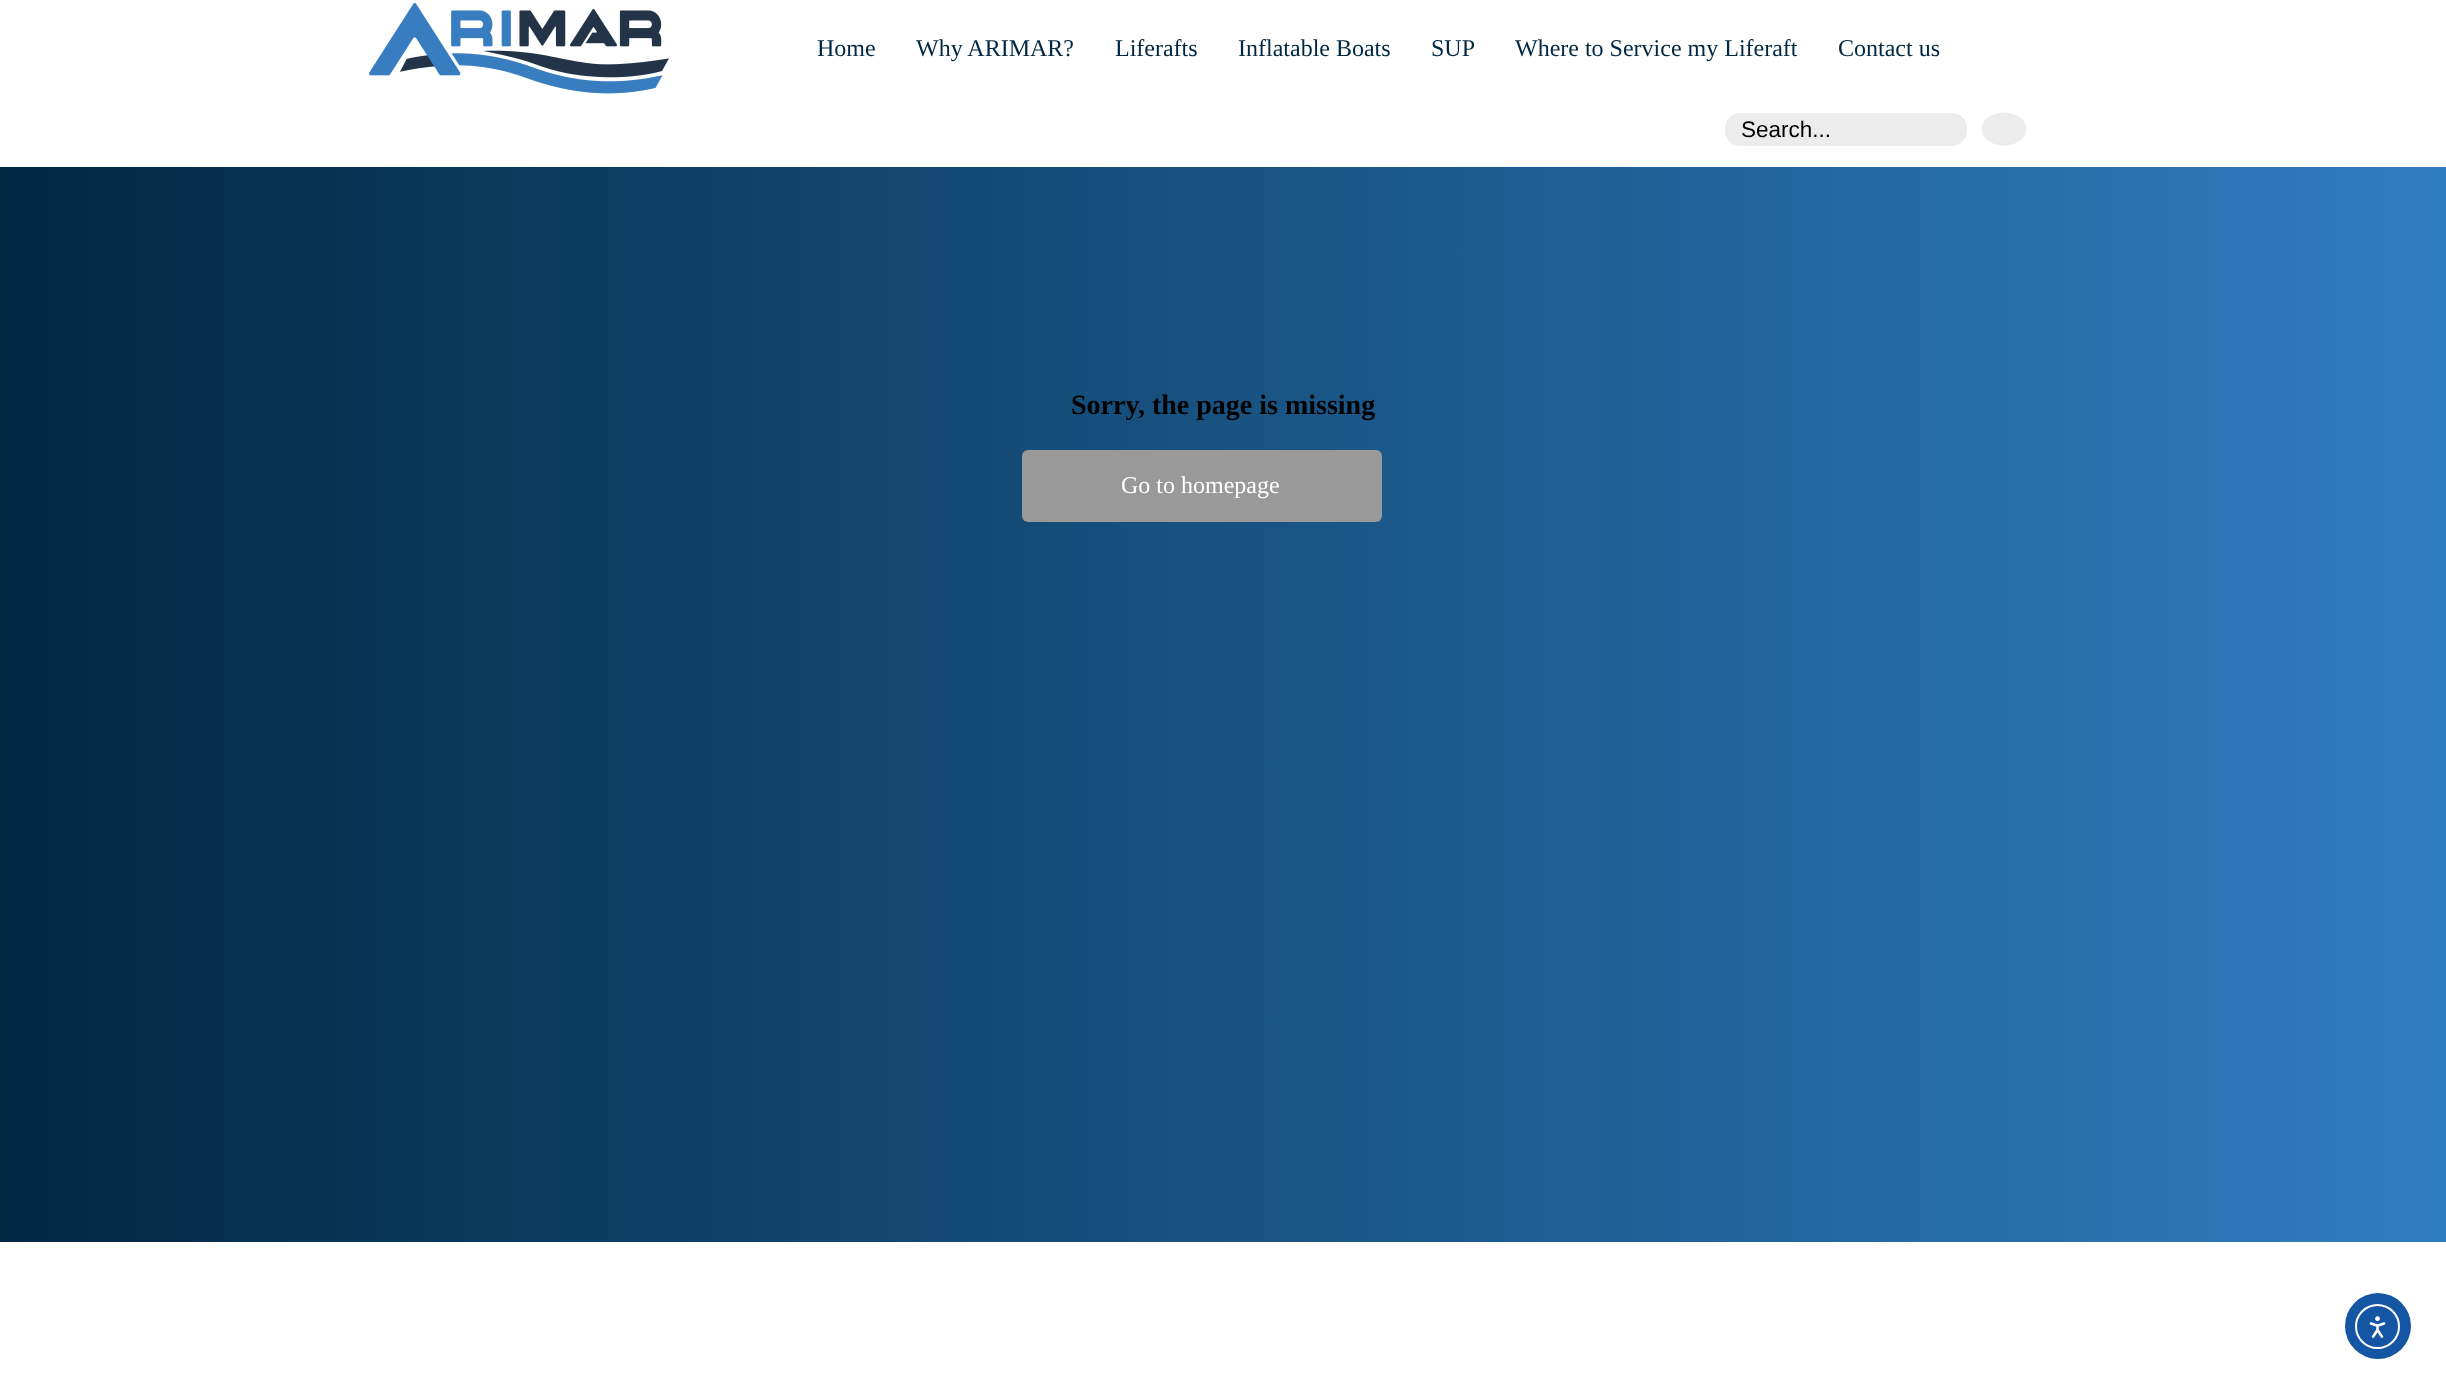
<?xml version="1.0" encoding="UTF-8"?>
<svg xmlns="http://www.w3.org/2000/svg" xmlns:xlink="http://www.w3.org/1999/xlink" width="2446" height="1394">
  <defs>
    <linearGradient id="g1" gradientUnits="userSpaceOnUse" x1="0" y1="704" x2="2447" y2="704"><stop offset="0" stop-color="#012842" /><stop offset="1" stop-color="#2f7dc1" /></linearGradient>
  </defs>
  <rect width="100%" height="100%" fill="#ffffff" />
  <image x="369" y="3" width="300" height="91" xlink:href="image1.png" />
  <rect x="1725" y="113" width="242" height="33" rx="15" fill="#ececec" />
  <ellipse cx="2004" cy="129" rx="22.5" ry="16.5" fill="#ececec" />
  <rect y="167" width="2446" height="1075" fill="url(#g1)" />
  <rect x="1022" y="450" width="360" height="72" rx="6" fill="#999999" />
  <circle cx="2378" cy="1326" r="33" fill="#1455a4" />
  <circle cx="2377.5" cy="1326.5" r="21.5" fill="none" stroke="#ffffff" stroke-width="2" />
  <image x="2369" y="1316" width="17" height="22" xlink:href="image2.png" />
  <text x="817" y="56" style="font-family: Liberation Serif; font-size: 24px; fill: #012842">Home</text>
  <text x="916" y="56" style="font-family: Liberation Serif; font-size: 24px; fill: #012842">Why ARIMAR?</text>
  <text x="1115" y="56" style="font-family: Liberation Serif; font-size: 24px; fill: #012842">Liferafts</text>
  <text x="1238" y="56" style="font-family: Liberation Serif; font-size: 24px; fill: #012842">Inflatable Boats</text>
  <text x="1431" y="56" style="font-family: Liberation Serif; font-size: 24px; fill: #012842">SUP</text>
  <text x="1515" y="56" style="font-family: Liberation Serif; font-size: 24px; fill: #012842">Where to Service my Liferaft</text>
  <text x="1838" y="56" style="font-family: Liberation Serif; font-size: 24px; fill: #012842">Contact us</text>
  <text x="1741" y="137" style="font-family: Liberation Sans; font-size: 22.5px; fill: #000000">Search...</text>
  <text x="1071" y="414" style="font-family: Liberation Serif; font-size: 28px; font-weight: bold; fill: #000000">Sorry, the page is missing</text>
  <text x="1121" y="493" style="font-family: Liberation Serif; font-size: 24px; fill: #ffffff">Go to homepage</text>
</svg>
